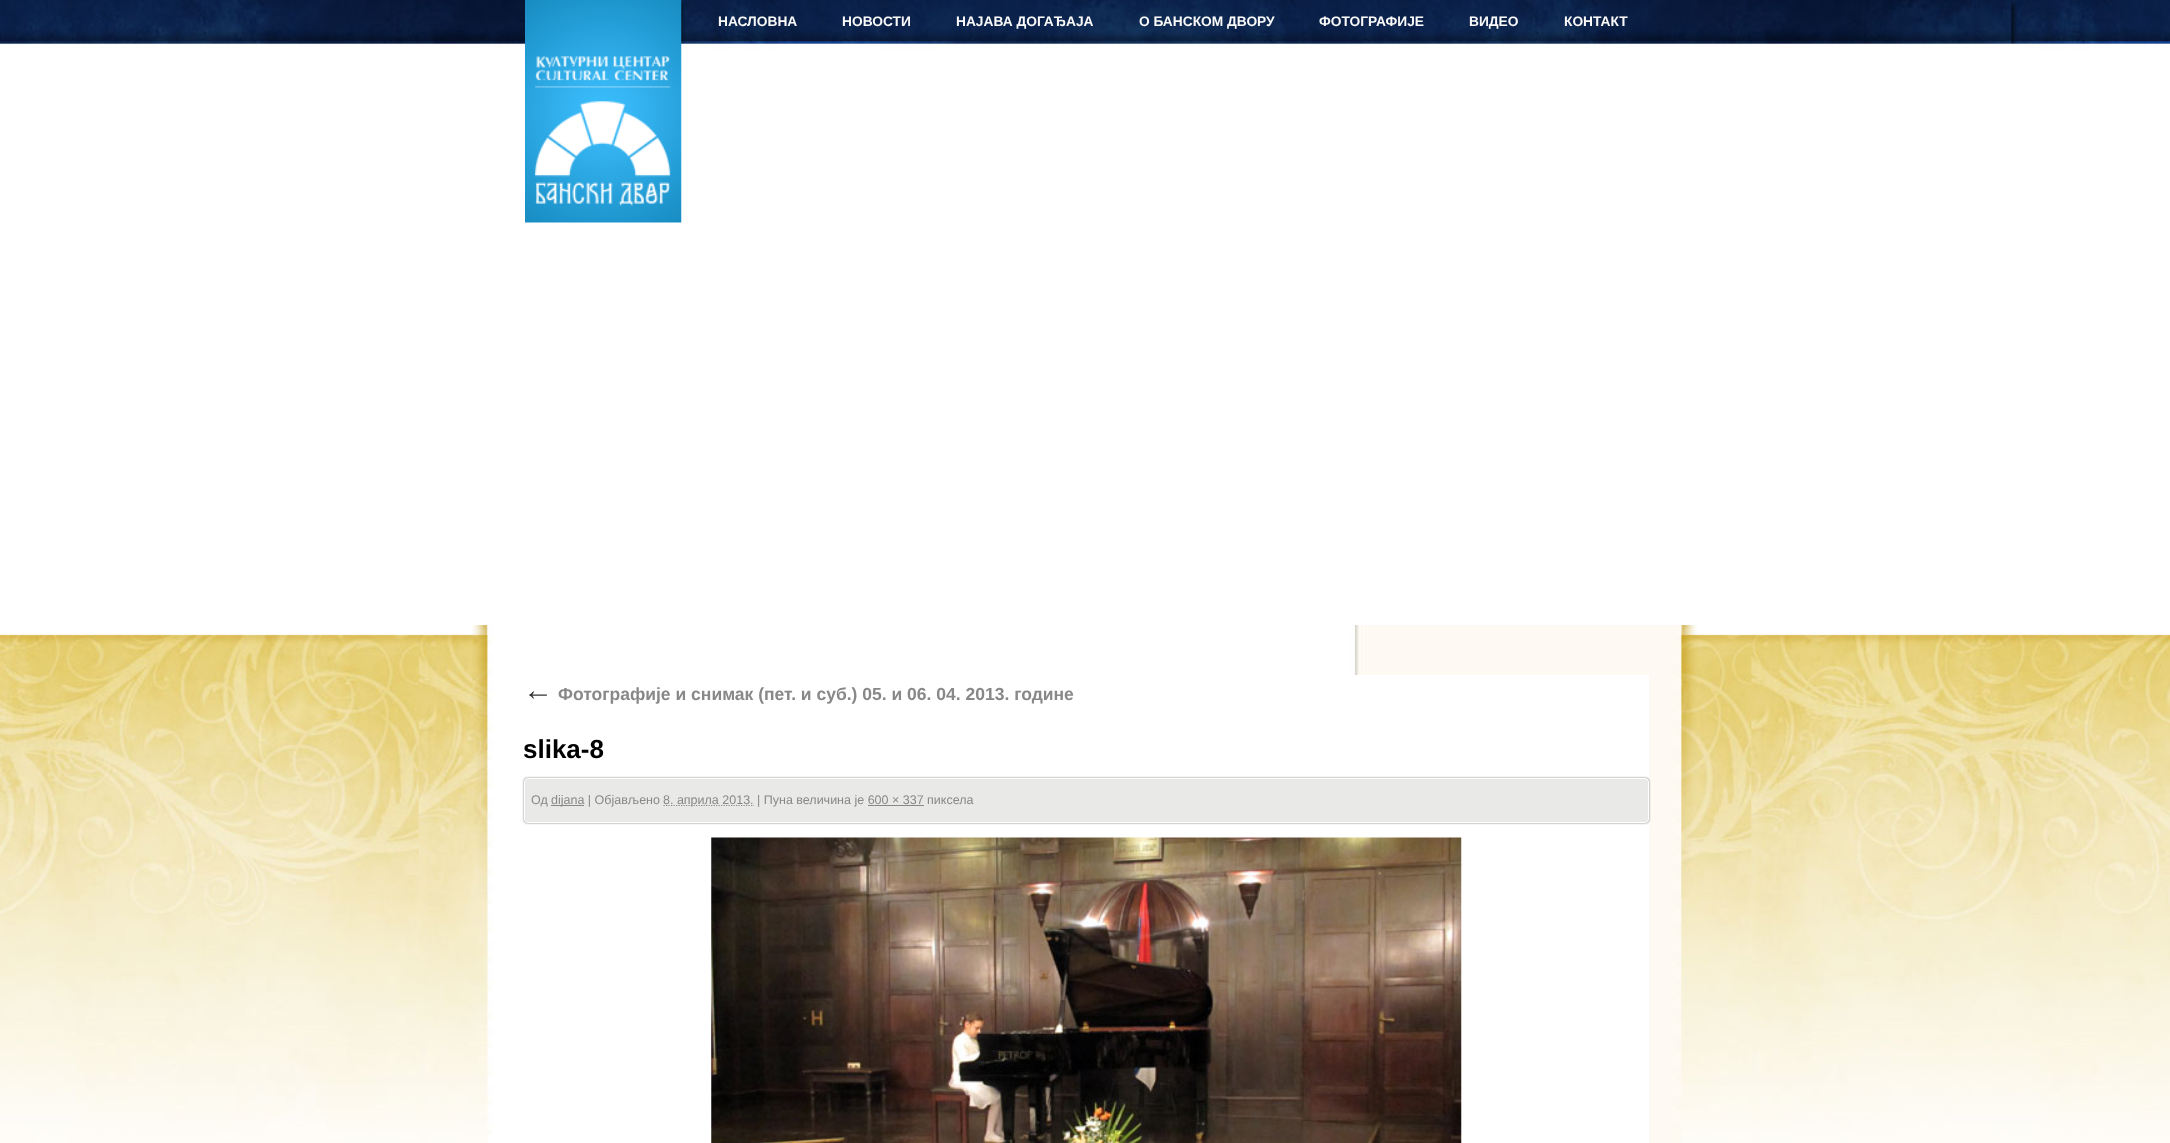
<?xml version="1.0" encoding="UTF-8"?>
<svg xmlns="http://www.w3.org/2000/svg" xmlns:xlink="http://www.w3.org/1999/xlink" width="2170" height="1143">
  <rect width="100%" height="100%" fill="#ffffff" />
  <image x="0" y="0" width="2170" height="1143" xlink:href="image1.png" />
  <image x="525" y="0" width="157" height="223" xlink:href="image2.png" />
  <image x="472" y="625" width="1225" height="274" xlink:href="image3.png" />
  <image x="487" y="625" width="1195" height="518" xlink:href="image4.png" />
  <rect x="1348" y="675" width="301" height="468" fill="#ffffff" />
  <rect x="524" y="778" width="1125" height="45" rx="4" fill="#000000" fill-opacity="0.5" filter="blur(1px)" />
  <rect x="524.5" y="778.5" width="1124" height="44" rx="3.5" fill="#e9e9e8" stroke="#ffffff" />
  <rect x="551" y="805" width="33" height="1" fill="#888888" />
  <path d="M 663.5 805.5 h 90.5" fill="none" stroke="#888888" stroke-width="1.2" stroke-dasharray="1.25 1.25" />
  <rect x="868" y="805" width="56" height="1" fill="#888888" />
  <image x="711" y="837" width="751" height="306" xlink:href="image5.png" />
  <text x="718" y="26" style="font-family: Liberation Sans; font-size: 13.75px; font-weight: bold; fill: #fafafa">НАСЛОВНА</text>
  <text x="842" y="26" style="font-family: Liberation Sans; font-size: 13.75px; font-weight: bold; fill: #fafafa">НОВОСТИ</text>
  <text x="956" y="26" style="font-family: Liberation Sans; font-size: 13.75px; font-weight: bold; fill: #fafafa">НАЈАВА ДОГАЂАЈА</text>
  <text x="1139" y="26" style="font-family: Liberation Sans; font-size: 13.75px; font-weight: bold; fill: #fafafa">О БАНСКОМ ДВОРУ</text>
  <text x="1319" y="26" style="font-family: Liberation Sans; font-size: 13.75px; font-weight: bold; fill: #fafafa">ФОТОГРАФИЈЕ</text>
  <text x="1469" y="26" style="font-family: Liberation Sans; font-size: 13.75px; font-weight: bold; fill: #fafafa">ВИДЕО</text>
  <text x="1564" y="26" style="font-family: Liberation Sans; font-size: 13.75px; font-weight: bold; fill: #fafafa">КОНТАКТ</text>
  <text x="523" y="700" style="font-family: Liberation Serif; font-size: 30px; font-style: italic; fill: #333333">←</text>
  <text x="558" y="700" style="font-family: Liberation Sans; font-size: 17.5px; font-weight: bold; fill: #888888">Фотографије и снимак (пет. и суб.) 05. и 06. 04. 2013. године</text>
  <text x="523" y="758" style="font-family: Liberation Sans; font-size: 26px; font-weight: bold; fill: #000000">slika-8</text>
  <text x="531" y="804" style="font-family: Liberation Sans; font-size: 12.5px; fill: #888888">Од</text>
  <text x="551" y="804" style="font-family: Liberation Sans; font-size: 12.5px; fill: #888888">dijana | Објављено</text>
  <text x="663" y="804" style="font-family: Liberation Sans; font-size: 12.5px; fill: #888888">8. априла 2013. | Пуна величина је 600 × 337 пиксела</text>
</svg>
